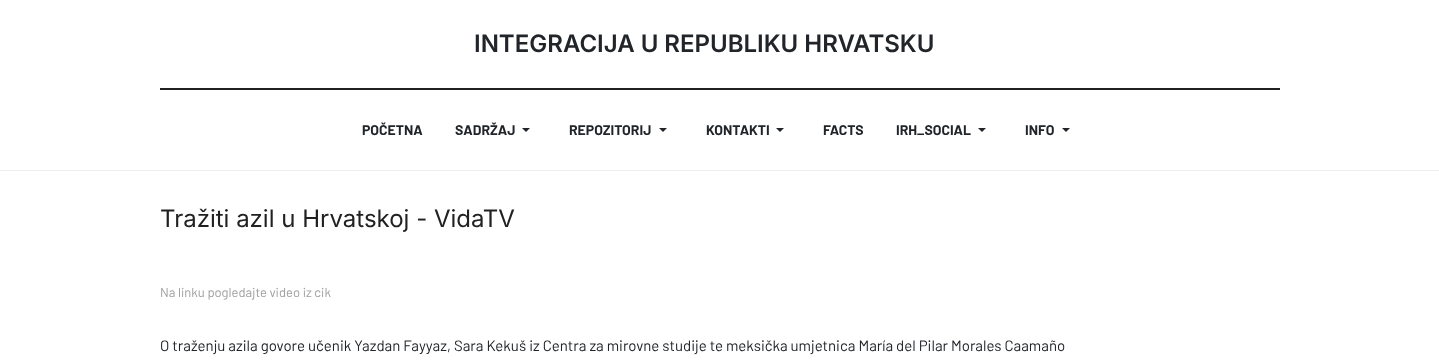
<?xml version="1.0" encoding="UTF-8"?>
<svg xmlns="http://www.w3.org/2000/svg" xmlns:xlink="http://www.w3.org/1999/xlink" width="1439" height="364">
  <rect width="100%" height="100%" fill="#ffffff" />
  <rect y="170" width="1439" height="1" fill="#eeeeee" />
  <rect x="160" y="88" width="1120" height="2" fill="#212121" />
  <path d="M 522 128 h 8 l -4 4 z" fill="#212529" />
  <path d="M 659 128 h 8 l -4 4 z" fill="#212529" />
  <path d="M 776 128 h 8 l -4 4 z" fill="#212529" />
  <path d="M 978 128 h 8 l -4 4 z" fill="#212529" />
  <path d="M 1062 128 h 8 l -4 4 z" fill="#212529" />
  <text x="474" y="52" style="font-family: Inter; font-size: 24px; font-weight: 600; fill: #212529">INTEGRACIJA U REPUBLIKU HRVATSKU</text>
  <text x="362" y="135" style="font-family: Barlow; font-size: 14px; font-weight: bold; fill: #212529">POČETNA</text>
  <text x="455" y="135" style="font-family: Barlow; font-size: 14px; font-weight: bold; fill: #212529">SADRŽAJ</text>
  <text x="569" y="135" style="font-family: Barlow; font-size: 14px; font-weight: bold; fill: #212529">REPOZITORIJ</text>
  <text x="706" y="135" style="font-family: Barlow; font-size: 14px; font-weight: bold; fill: #212529">KONTAKTI</text>
  <text x="823" y="135" style="font-family: Barlow; font-size: 14px; font-weight: bold; fill: #212529">FACTS</text>
  <text x="896" y="135" style="font-family: Barlow; font-size: 14px; font-weight: bold; fill: #212529">IRH_SOCIAL</text>
  <text x="1025" y="135" style="font-family: Barlow; font-size: 14px; font-weight: bold; fill: #212529">INFO</text>
  <text x="160" y="227" style="font-family: Inter; font-size: 24px; fill: #212121">Tražiti azil u Hrvatskoj - VidaTV</text>
  <text x="160" y="297" style="font-family: Barlow; font-size: 13px; fill: #9e9e9e">Na linku pogledajte video iz cik</text>
  <text x="160" y="351" style="font-family: Barlow; font-size: 15px; fill: #212529">O traženju azila govore učenik Yazdan Fayyaz, Sara Kekuš iz Centra za mirovne studije te meksička umjetnica María del Pilar Morales Caamaño</text>
</svg>
